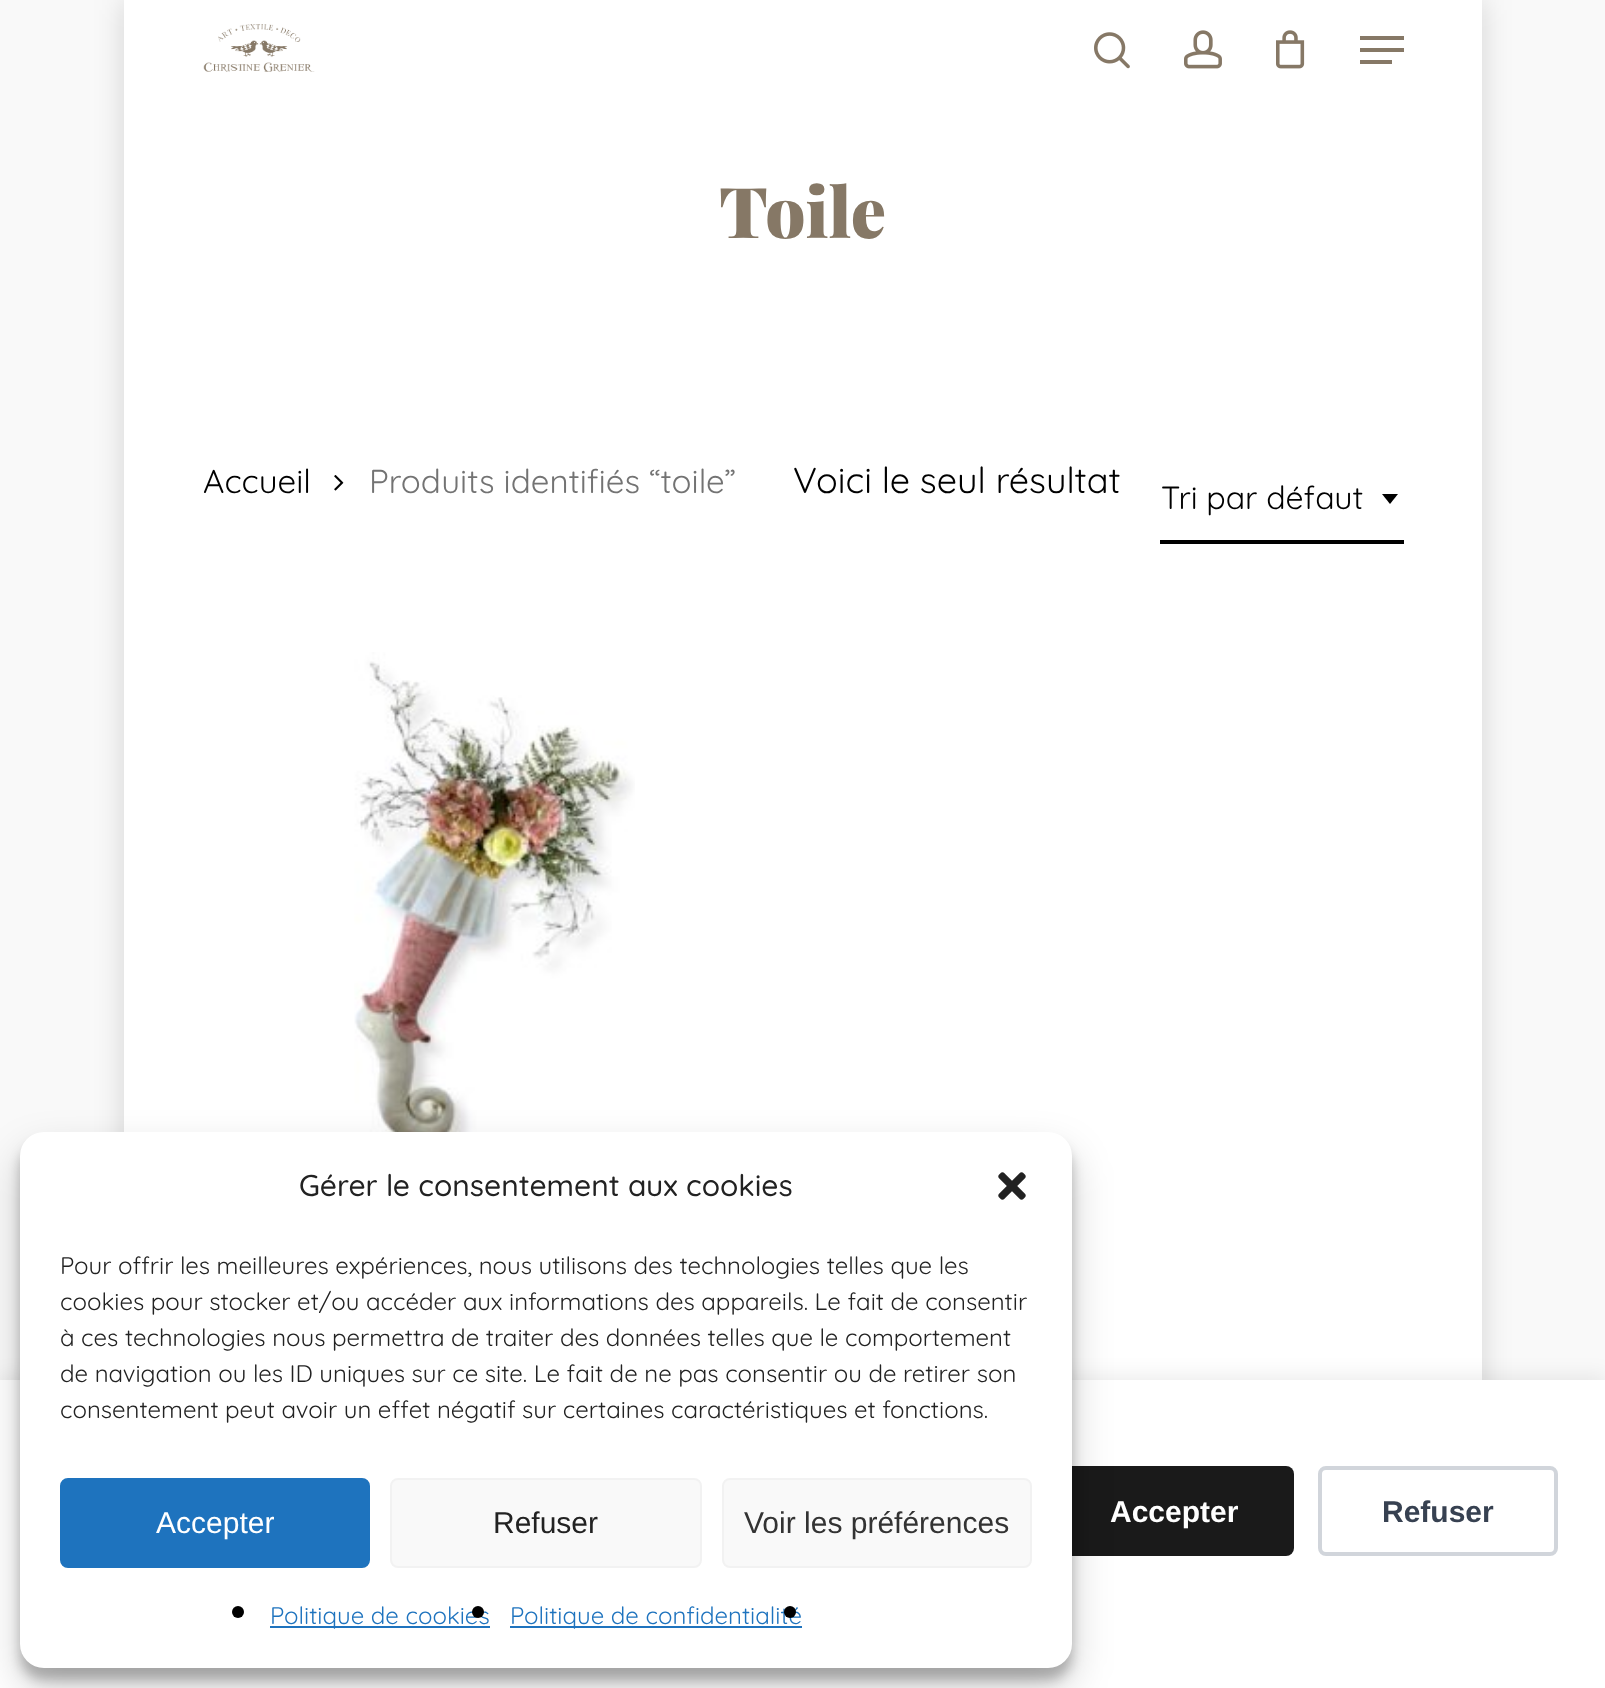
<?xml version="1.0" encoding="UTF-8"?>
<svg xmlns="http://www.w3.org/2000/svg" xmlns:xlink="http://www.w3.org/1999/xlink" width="1605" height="1688">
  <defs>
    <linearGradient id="g1" gradientUnits="userSpaceOnUse" x1="142" y1="-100" x2="1464" y2="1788"><stop offset="0" stop-color="#f9f9f9" /><stop offset="1" stop-color="#f9f9f9" /></linearGradient>
  </defs>
  <rect width="100%" height="100%" fill="#ffffff" />
  <rect width="1605" height="1380" fill="url(#g1)" />
  <rect x="124" width="1358" height="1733" fill="#000000" fill-opacity="0.15" filter="blur(15px)" />
  <rect x="124" width="1358" height="1380" fill="#ffffff" />
  <image x="203" y="24" width="112" height="48" xlink:href="image1.png" />
  <image x="1094" y="32" width="36" height="37" xlink:href="image2.png" />
  <image x="1184" y="30" width="38" height="39" xlink:href="image3.png" />
  <image x="1276" y="30" width="29" height="39" xlink:href="image4.png" />
  <rect x="1360" y="36" width="44" height="4" fill="#867866" />
  <rect x="1360" y="60" width="32" height="4" fill="#867866" />
  <rect x="1360" y="48" width="44" height="4" fill="#867866" />
  <image x="334" y="475" width="10" height="16" xlink:href="image5.png" />
  <rect x="1160" y="540" width="244" height="4" fill="#000000" />
  <path d="M 1382 494 h 16 l -8 10 z" fill="#000000" />
  <image x="354" y="652" width="281" height="480" xlink:href="image6.png" />
  <rect y="1376" width="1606" height="308" fill="#000000" fill-opacity="0.08" filter="blur(10px)" />
  <rect y="1380" width="1605" height="308" fill="#ffffff" />
  <rect x="1054" y="1466" width="240" height="90" rx="8" fill="#1a1a1a" />
  <rect x="20" y="1144" width="1052" height="536" rx="24" fill="#000000" fill-opacity="0.23" filter="blur(6px)" />
  <rect x="20" y="1152" width="1052" height="536" rx="24" fill="#000000" fill-opacity="0.19" filter="blur(20px)" />
  <rect x="20" y="1132" width="1052" height="536" rx="24" fill="#ffffff" />
  <image x="998" y="1172" width="28" height="28" xlink:href="image7.png" />
  <rect x="61" y="1479" width="308" height="88" rx="7" fill="#1e73be" stroke="#1e73be" stroke-width="2" />
  <rect x="391" y="1479" width="310" height="88" rx="7" fill="#f9f9f9" stroke="#f2f2f2" stroke-width="2" />
  <rect x="723" y="1479" width="308" height="88" rx="7" fill="#f9f9f9" stroke="#f2f2f2" stroke-width="2" />
  <circle cx="238" cy="1612" r="6" fill="#000000" />
  <rect x="270" y="1626" width="220" height="2" fill="#1e73be" />
  <rect x="510" y="1626" width="292" height="2" fill="#1e73be" />
  <rect x="1320" y="1468" width="236" height="86" rx="6" fill="none" stroke="#d1d5db" stroke-width="4" />
  <text x="719" y="238" style="font-family: Playfair Display; font-size: 70px; font-weight: 900; fill: #867866">Toile</text>
  <text x="203" y="493" style="font-family: Quicksand; font-size: 33.1px; fill: #000000">Accueil</text>
  <text x="369" y="493" style="font-family: Quicksand; font-size: 33.1px; fill: #737373">Produits identifiés “toile”</text>
  <text x="793" y="493" style="font-family: Quicksand; font-size: 36px; fill: #000000">Voici le seul résultat</text>
  <text x="1161" y="509" style="font-family: Quicksand; font-size: 32px; fill: #000000">Tri par défaut</text>
  <text x="299" y="1196" style="font-family: Quicksand; font-size: 30px; font-weight: 500; fill: #222222">Gérer le consentement aux cookies</text>
  <text x="60" y="1274" style="font-family: Quicksand; font-size: 24px; fill: #222222">Pour offrir les meilleures expériences, nous utilisons des technologies telles que les</text>
  <text x="60" y="1310" style="font-family: Quicksand; font-size: 24px; fill: #222222">cookies pour stocker et/ou accéder aux informations des appareils. Le fait de consentir</text>
  <text x="60" y="1346" style="font-family: Quicksand; font-size: 24px; fill: #222222">à ces technologies nous permettra de traiter des données telles que le comportement</text>
  <text x="60" y="1382" style="font-family: Quicksand; font-size: 24px; fill: #222222">de navigation ou les ID uniques sur ce site. Le fait de ne pas consentir ou de retirer son</text>
  <text x="60" y="1418" style="font-family: Quicksand; font-size: 24px; fill: #222222">consentement peut avoir un effet négatif sur certaines caractéristiques et fonctions.</text>
  <text x="156" y="1533" style="font-family: Liberation Sans; font-size: 30px; fill: #ffffff">Accepter</text>
  <text x="493" y="1533" style="font-family: Liberation Sans; font-size: 30px; fill: #222222">Refuser</text>
  <text x="744" y="1533" style="font-family: Liberation Sans; font-size: 30px; fill: #333333">Voir les préférences</text>
  <text x="270" y="1624" style="font-family: Quicksand; font-size: 24px; fill: #1e73be">Politique de cookies</text>
  <circle cx="478" cy="1612" r="6" fill="#000000" />
  <text x="510" y="1624" style="font-family: Quicksand; font-size: 24px; fill: #1e73be">Politique de confidentialité</text>
  <circle cx="790" cy="1612" r="6" fill="#000000" />
  <text x="1110" y="1522" style="font-family: Liberation Sans; font-size: 30px; font-weight: bold; fill: #ffffff">Accepter</text>
  <text x="1382" y="1522" style="font-family: Liberation Sans; font-size: 30px; font-weight: bold; fill: #374151">Refuser</text>
</svg>
